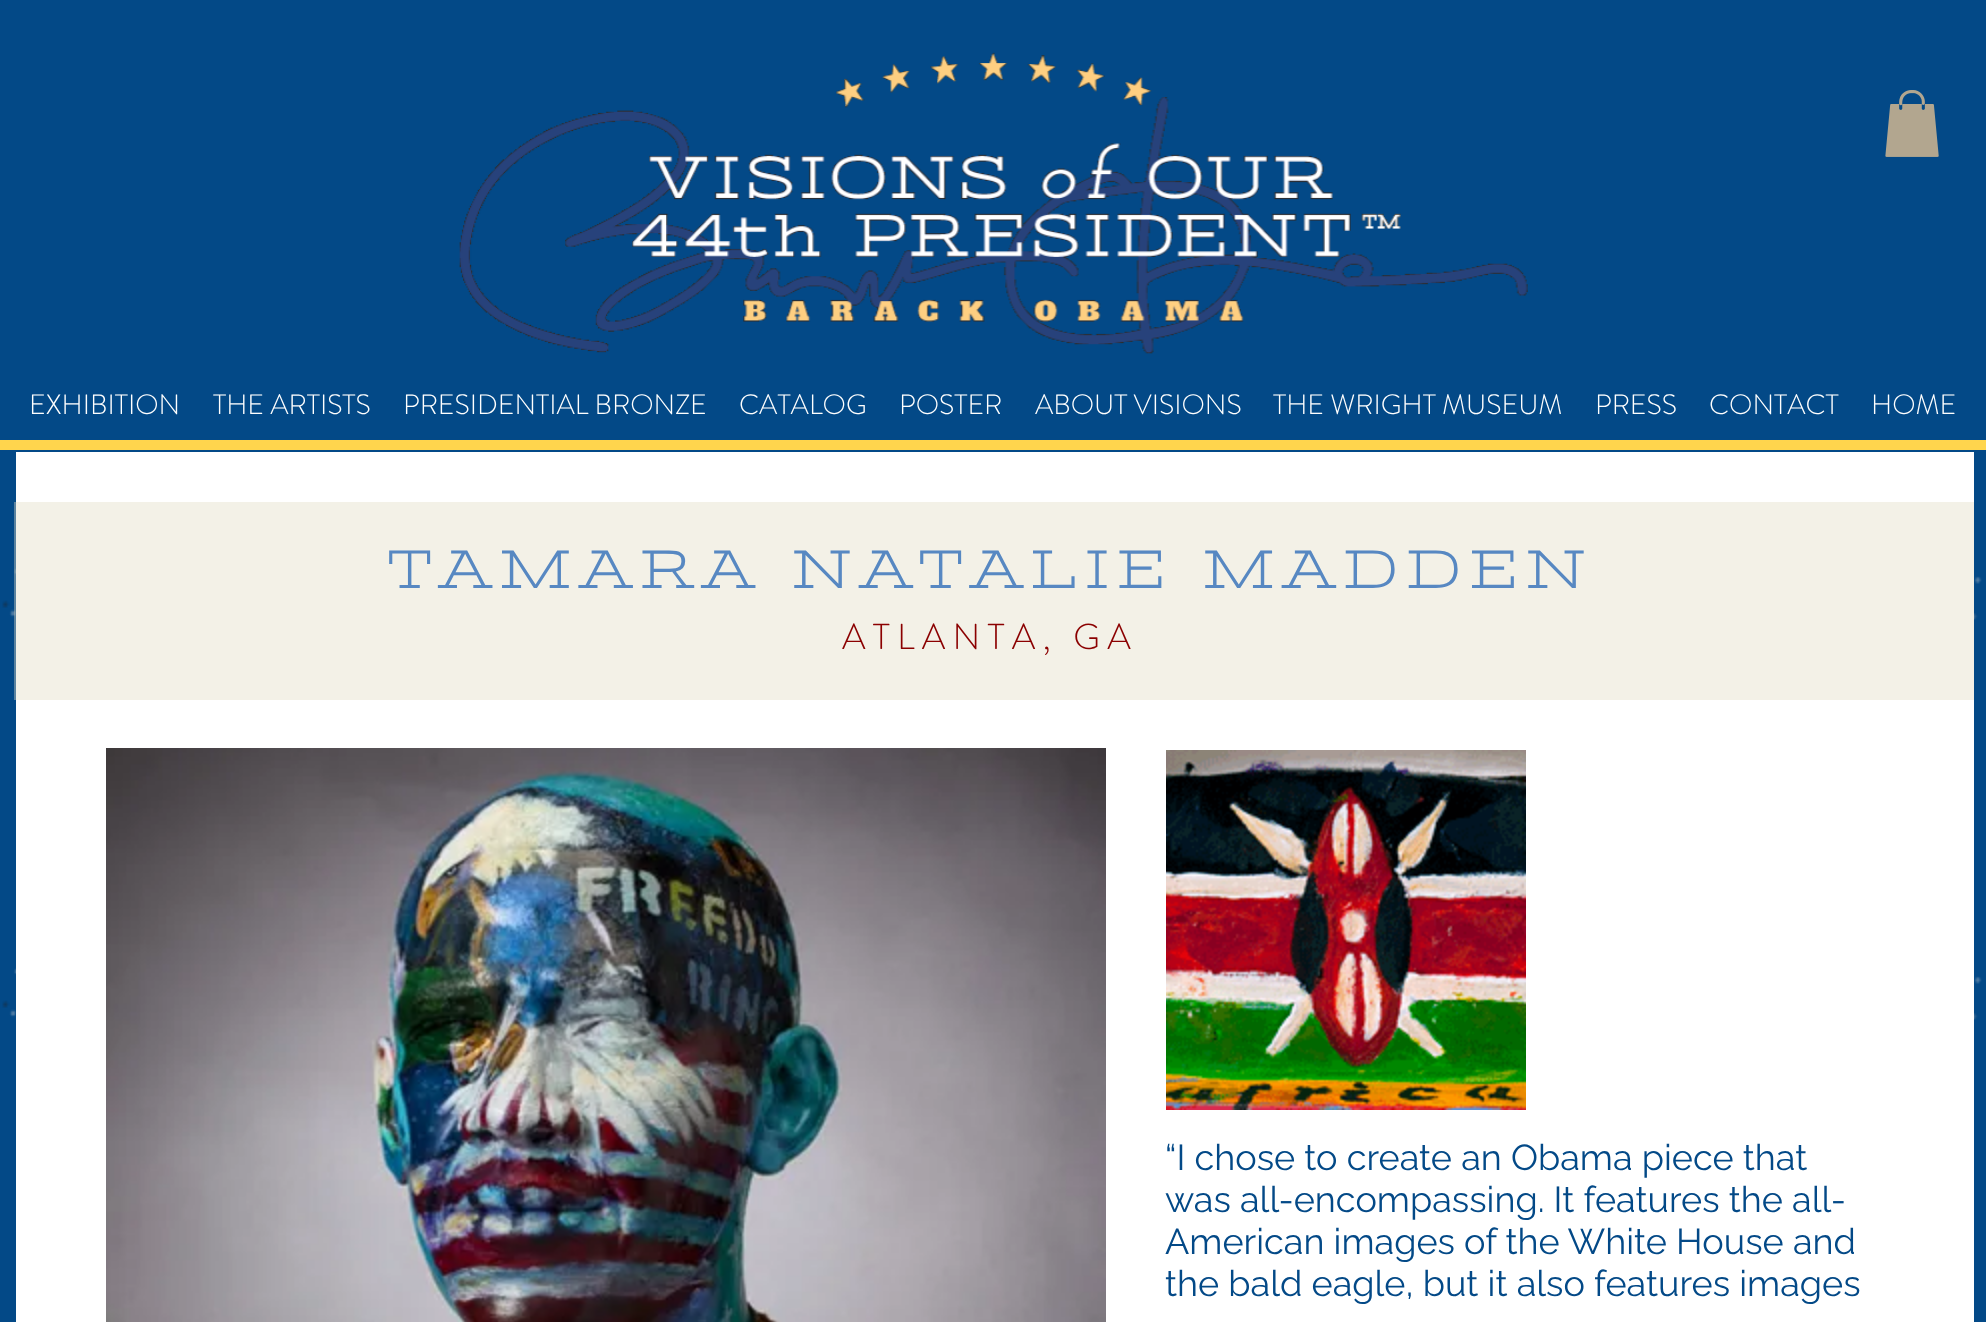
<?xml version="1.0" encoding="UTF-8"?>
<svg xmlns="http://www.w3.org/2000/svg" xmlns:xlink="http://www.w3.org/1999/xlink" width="1986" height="1322">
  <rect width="100%" height="100%" fill="#034987" />
  <image x="459" y="52" width="1069" height="302" xlink:href="image1.png" />
  <image x="1885" y="90" width="54" height="67" xlink:href="image2.png" />
  <rect y="440" width="1986" height="10" fill="#ffd54d" />
  <image x="2" y="568" width="1980" height="452" xlink:href="image5.png" />
  <rect x="16" y="452" width="1958" height="870" fill="#ffffff" />
  <rect x="14" y="502" width="1960" height="198" fill="#e1dbc2" fill-opacity="0.4" />
  <image x="106" y="748" width="1000" height="574" xlink:href="image3.png" />
  <image x="1166" y="750" width="360" height="360" xlink:href="image4.png" />
  <text x="29" y="414" style="font-family: 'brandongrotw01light'; font-size: 28px; font-weight: 300; fill: #ffffff">EXHIBITION</text>
  <text x="213" y="414" style="font-family: 'brandongrotw01light'; font-size: 28px; font-weight: 300; fill: #ffffff">THE ARTISTS</text>
  <text x="403" y="414" style="font-family: 'brandongrotw01light'; font-size: 28px; font-weight: 300; fill: #ffffff">PRESIDENTIAL BRONZE</text>
  <text x="739" y="414" style="font-family: 'brandongrotw01light'; font-size: 28px; font-weight: 300; fill: #ffffff">CATALOG</text>
  <text x="899" y="414" style="font-family: 'brandongrotw01light'; font-size: 28px; font-weight: 300; fill: #ffffff">POSTER</text>
  <text x="1035" y="414" style="font-family: 'brandongrotw01light'; font-size: 28px; font-weight: 300; fill: #ffffff">ABOUT VISIONS</text>
  <text x="1273" y="414" style="font-family: 'brandongrotw01light'; font-size: 28px; font-weight: 300; fill: #ffffff">THE WRIGHT MUSEUM</text>
  <text x="1595" y="414" style="font-family: 'brandongrotw01light'; font-size: 28px; font-weight: 300; fill: #ffffff">PRESS</text>
  <text x="1709" y="414" style="font-family: 'brandongrotw01light'; font-size: 28px; font-weight: 300; fill: #ffffff">CONTACT</text>
  <text x="1871" y="414" style="font-family: 'brandongrotw01light'; font-size: 28px; font-weight: 300; fill: #ffffff">HOME</text>
  <text x="387" y="588" style="font-family: Stint Ultra Expanded; font-size: 56px; letter-spacing: 8.4px; fill: #5788c2">TAMARA NATALIE MADDEN</text>
  <text x="842" y="649" style="font-family: 'brandongrotw01light'; font-size: 36px; font-weight: 300; letter-spacing: 7.25px; fill: #8b0000">ATLANTA, GA</text>
  <text x="1165" y="1170" style="font-family: Raleway; font-size: 36px; fill: #034987">“I chose to create an Obama piece that</text>
  <text x="1165" y="1212" style="font-family: Raleway; font-size: 36px; fill: #034987">was all-encompassing. It features the all-</text>
  <text x="1165" y="1254" style="font-family: Raleway; font-size: 36px; fill: #034987">American images of the White House and</text>
  <text x="1165" y="1296" style="font-family: Raleway; font-size: 36px; fill: #034987">the bald eagle, but it also features images</text>
</svg>
